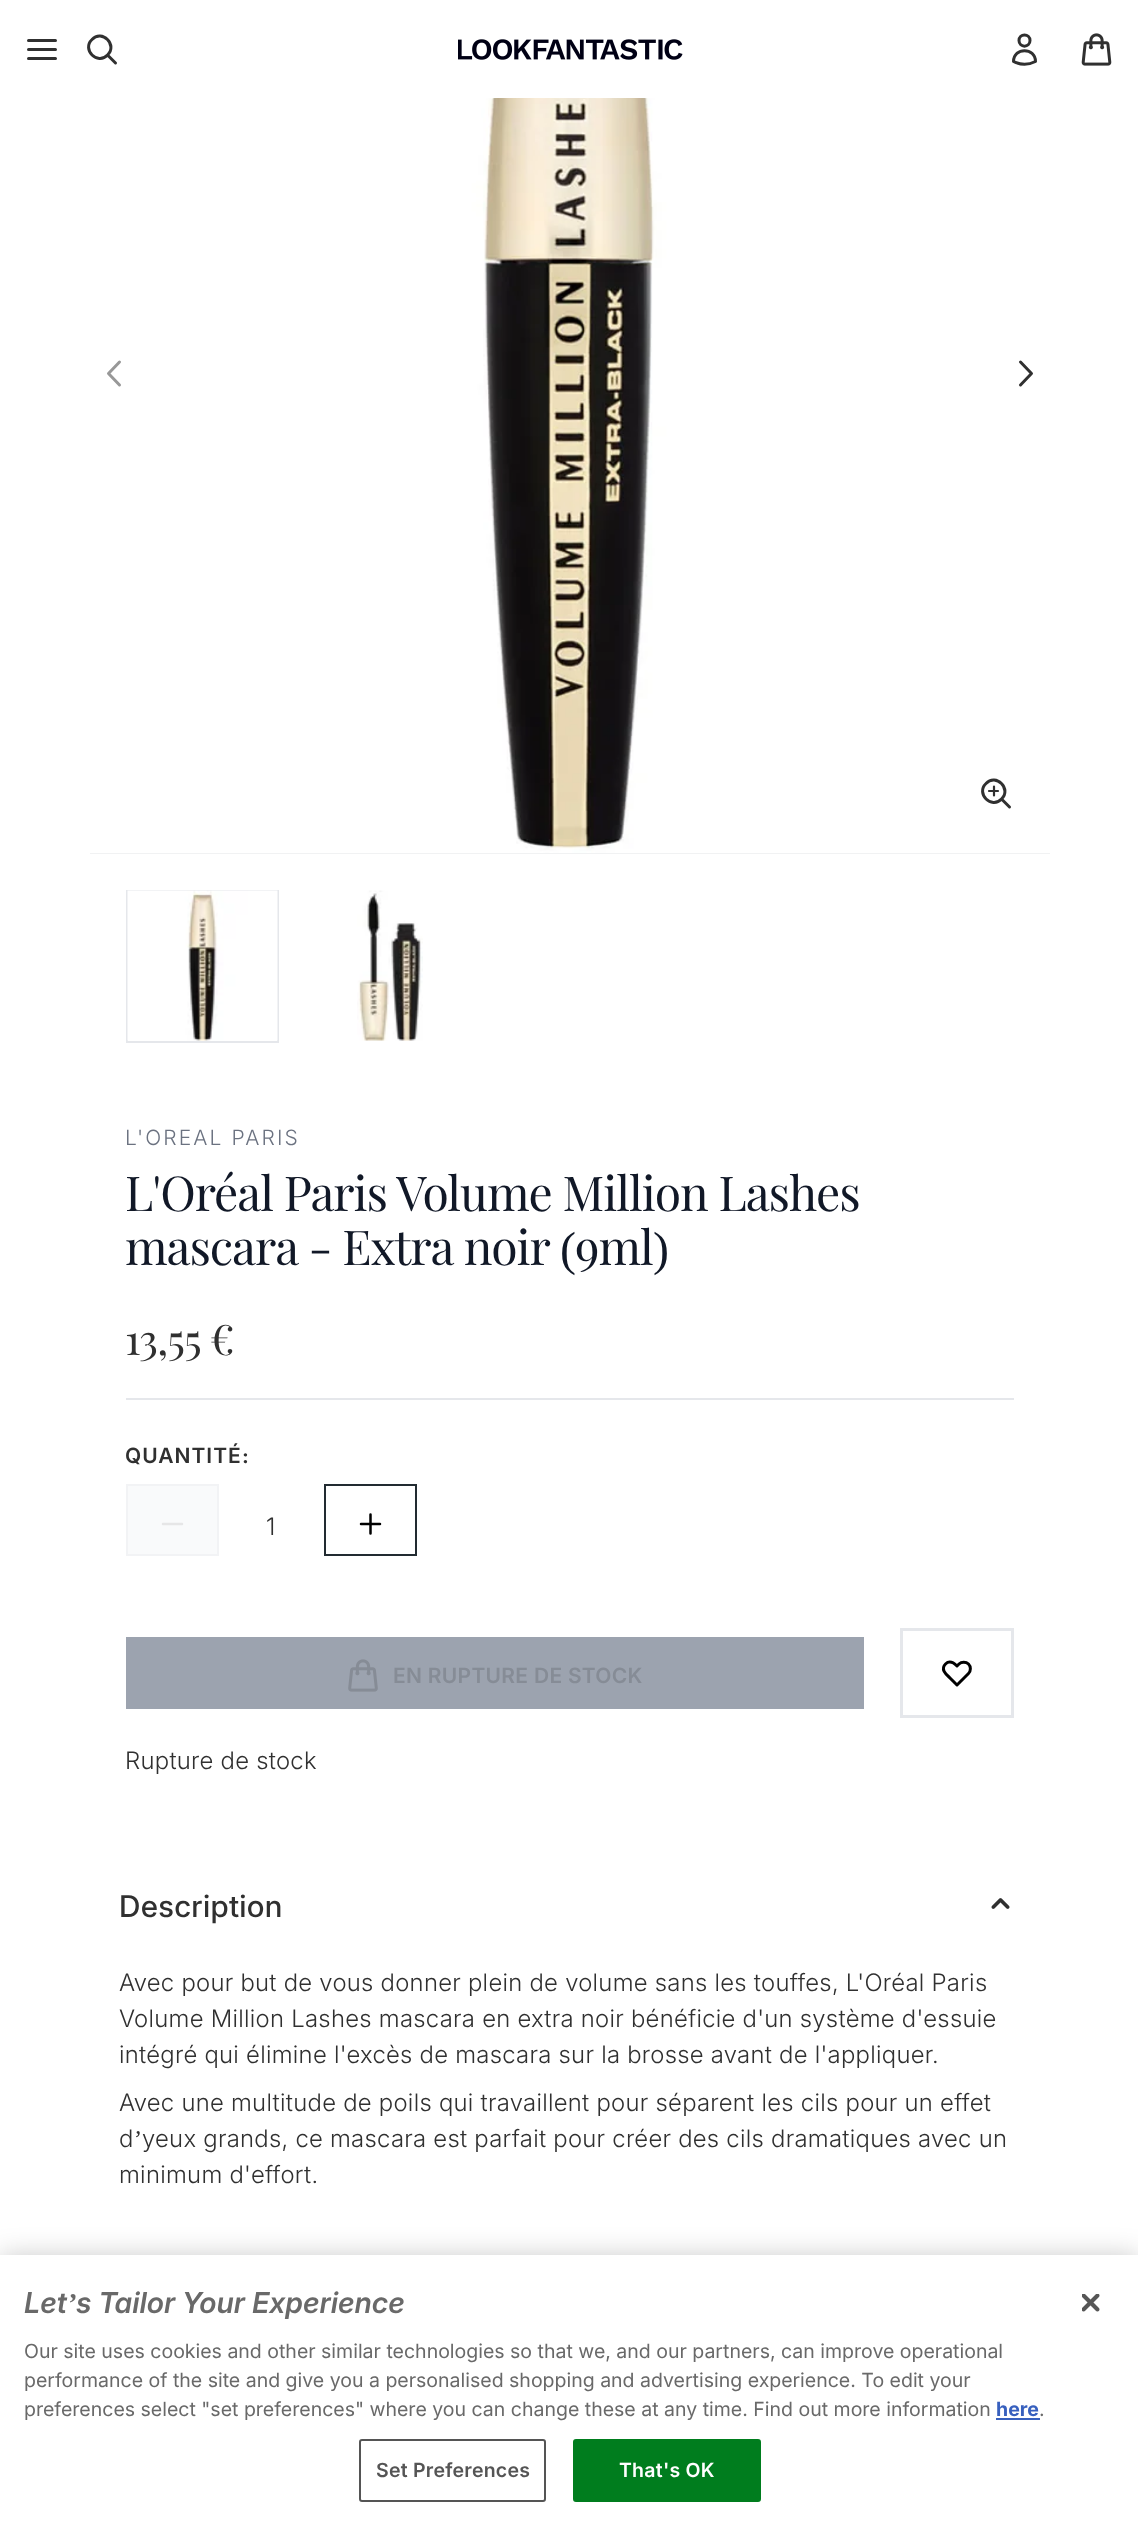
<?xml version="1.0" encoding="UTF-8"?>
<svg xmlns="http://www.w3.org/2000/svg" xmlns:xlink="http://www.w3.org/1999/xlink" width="1138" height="2525">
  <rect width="100%" height="100%" fill="#ffffff" />
  <path d="M 28.5 49.5 h 27 m -27 -9 h 27 m -27 18 h 27" fill="none" stroke="#303030" stroke-width="3" stroke-linecap="round" stroke-linejoin="round" />
  <path d="M 115.5 63 l -8 -8 m 0 0 c 10.5 -10 -5.5 -26 -15.5 -15.5 c -10.5 10 5.5 26 15.5 15.5 z" fill="none" stroke="#303030" stroke-width="3" stroke-linecap="round" stroke-linejoin="round" />
  <image x="458" y="39" width="225" height="21" xlink:href="image1.png" />
  <path d="M 1030 40.5 c 0 7.5 -11 7.5 -11 0 c 0 -7.5 11 -7.5 11 0 z m -16.5 21 c 0 -14.5 22 -14.5 22 0 c -7 3.5 -15 3.5 -22 0 z" fill="none" stroke="#303030" stroke-width="3" stroke-linecap="round" stroke-linejoin="round" />
  <image x="1081" y="33" width="31" height="33" xlink:href="image2.png" />
  <rect x="90" y="853" width="960" height="1" fill="#f1f2f3" />
  <image x="90" y="98" width="960" height="755" xlink:href="image3.png" />
  <path d="M 119.5 385 l -11 -11.5 l 11 -11.5" fill="none" stroke="#989898" stroke-width="3" stroke-linecap="round" stroke-linejoin="round" />
  <path d="M 1020.5 362 l 11 11.5 l -11 11.5" fill="none" stroke="#303030" stroke-width="3" stroke-linecap="round" stroke-linejoin="round" />
  <path d="M 1009.5 807 l -8 -8 m 0 0 c 10.5 -10 -5.5 -26 -15.5 -15.5 c -10.5 10 5.5 26 15.5 15.5 z" fill="none" stroke="#303030" stroke-width="3" stroke-linecap="round" stroke-linejoin="round" />
  <path d="M 989 791 h 9 m -4 -4.5 v 9" fill="none" stroke="#303030" stroke-width="2.2" stroke-linecap="round" stroke-linejoin="round" />
  <rect x="127" y="891" width="151" height="151" fill="none" stroke="#e5e7eb" stroke-width="2" />
  <image x="127" y="890" width="151" height="151" xlink:href="image4.png" />
  <image x="357" y="890" width="66" height="151" xlink:href="image5.png" />
  <rect x="126" y="1398" width="888" height="2" fill="#e5e7eb" />
  <rect x="127" y="1485" width="91" height="70" fill="#f9fafb" stroke="#f2f3f5" stroke-width="2" />
  <path d="M 182 1524 h -19" fill="none" stroke="#e6e6e7" stroke-width="2.5" stroke-linecap="round" stroke-linejoin="round" />
  <rect x="325" y="1485" width="91" height="70" fill="none" stroke="#222b31" stroke-width="2" />
  <path d="M 370.5 1514.5 v 19 m 9.5 -9.5 h -19" fill="none" stroke="#000000" stroke-width="2.5" stroke-linecap="round" stroke-linejoin="round" />
  <rect x="126" y="1637" width="738" height="72" fill="#9ca3af" />
  <image x="348" y="1659" width="30" height="33" xlink:href="image6.png" />
  <rect x="901.5" y="1629.5" width="111" height="87" fill="none" stroke="#e5e7eb" stroke-width="3" />
  <path d="M 945.5 1664 c -5 5 0 10 4 13.5 l 7.5 7.5 l 11.5 -11.5 c 2.5 -2.5 2.5 -7 0 -9.5 c -2.5 -2.5 -7 -2.5 -9.5 0 l -2 2 c -3.5 -3.5 -7.5 -6 -11.5 -2 z" fill="none" stroke="#000000" stroke-width="3" stroke-linecap="round" stroke-linejoin="round" />
  <image x="991" y="1898" width="19" height="11" xlink:href="image7.png" />
  <rect y="2255" width="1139" height="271" fill="#000000" fill-opacity="0.2" filter="blur(13.5px)" />
  <rect y="2255" width="1138" height="270" fill="#ffffff" />
  <rect x="996" y="2418" width="44" height="2" fill="#3860be" />
  <rect x="360" y="2440" width="185" height="61" rx="2" fill="none" stroke="#555555" stroke-width="2" />
  <rect x="574" y="2440" width="186" height="61" rx="2" fill="#007d1e" stroke="#007d1e" stroke-width="2" />
  <image x="1082" y="2294" width="18" height="18" xlink:href="image8.png" />
  <text x="125" y="1145" style="font-family: Inter; font-size: 21px; font-weight: 300; letter-spacing: 2.1px; fill: #6b7280">L'OREAL PARIS</text>
  <text x="125" y="1211" style="font-family: Playfair Display; font-size: 48px; letter-spacing: -1.05px; fill: #111827">L'Oréal Paris Volume Million Lashes</text>
  <text x="125" y="1265" style="font-family: Playfair Display; font-size: 48px; letter-spacing: -1.05px; fill: #111827">mascara - Extra noir</text>
  <text x="560" y="1265" style="font-family: Liberation Serif; font-size: 48px; letter-spacing: -1.05px; fill: #111827">(</text>
  <text x="575" y="1265" style="font-family: Playfair Display; font-size: 48px; letter-spacing: -1.05px; fill: #111827">9ml</text>
  <text x="653" y="1265" style="font-family: Liberation Serif; font-size: 48px; letter-spacing: -1.05px; fill: #111827">)</text>
  <text x="125" y="1355" style="font-family: Playfair Display; font-size: 42px; letter-spacing: -0.75px; fill: #303030">13,55 €</text>
  <text x="125" y="1463" style="font-family: Inter; font-size: 21px; font-weight: 600; letter-spacing: 1px; fill: #303030">QUANTITÉ</text>
  <text x="242" y="1463" style="font-family: Liberation Serif; font-size: 21px; font-weight: bold; letter-spacing: 1px; fill: #303030">:</text>
  <text x="266" y="1535" style="font-family: 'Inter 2'; font-size: 24px; font-weight: 300; letter-spacing: 0.3px; fill: #303030">1</text>
  <text x="393" y="1683" style="font-family: Inter; font-size: 21px; font-weight: 600; letter-spacing: 0.3px; fill: #868c96">EN RUPTURE DE STOCK</text>
  <text x="125" y="1769" style="font-family: 'Inter 2'; font-size: 24px; font-weight: 300; letter-spacing: 0.3px; fill: #303030">Rupture de stock</text>
  <text x="119" y="1917" style="font-family: Inter; font-size: 30px; font-weight: 500; letter-spacing: 0.3px; fill: #303030">Description</text>
  <text x="119" y="1991" style="font-family: 'Inter 2'; font-size: 24px; font-weight: 300; letter-spacing: 0.3px; fill: #303030">Avec pour but de vous donner plein de volume sans les touffes, L'Oréal Paris</text>
  <text x="119" y="2027" style="font-family: 'Inter 2'; font-size: 24px; font-weight: 300; letter-spacing: 0.3px; fill: #303030">Volume Million Lashes mascara en extra noir bénéficie d'un système d'essuie</text>
  <text x="119" y="2063" style="font-family: 'Inter 2'; font-size: 24px; font-weight: 300; letter-spacing: 0.3px; fill: #303030">intégré qui élimine l'excès de mascara sur la brosse avant de l'appliquer.</text>
  <text x="119" y="2111" style="font-family: 'Inter 2'; font-size: 24px; font-weight: 300; letter-spacing: 0.3px; fill: #303030">Avec une multitude de poils qui travaillent pour séparent les cils pour un effet</text>
  <text x="119" y="2147" style="font-family: 'Inter 2'; font-size: 24px; font-weight: 300; letter-spacing: 0.3px; fill: #303030">d</text>
  <text x="134" y="2147" style="font-family: Liberation Serif; font-size: 24px; letter-spacing: 0.3px; fill: #303030">’</text>
  <text x="142" y="2147" style="font-family: 'Inter 2'; font-size: 24px; font-weight: 300; letter-spacing: 0.3px; fill: #303030">yeux grands, ce mascara est parfait pour créer des cils dramatiques avec un</text>
  <text x="119" y="2183" style="font-family: 'Inter 2'; font-size: 24px; font-weight: 300; letter-spacing: 0.3px; fill: #303030">minimum d'effort.</text>
  <text x="24" y="2313" style="font-family: Inter; font-size: 28.75px; font-weight: 600; font-style: italic; fill: #696969">Let</text>
  <text x="67" y="2313" style="font-family: Liberation Serif; font-size: 28.75px; font-weight: bold; font-style: italic; fill: #696969">’</text>
  <text x="76" y="2313" style="font-family: Inter; font-size: 28.75px; font-weight: 600; font-style: italic; fill: #696969">s Tailor Your Experience</text>
  <text x="24" y="2358" style="font-family: Inter; font-size: 19.5px; fill: #696969">Our site uses cookies and other similar technologies so that we, and our partners, can improve operational</text>
  <text x="24" y="2387" style="font-family: Inter; font-size: 19.5px; fill: #696969">performance of the site and give you a personalised shopping and advertising experience. To edit your</text>
  <text x="24" y="2416" style="font-family: Inter; font-size: 19.5px; fill: #696969">preferences select "set preferences" where you can change these at any time. Find out more information</text>
  <text x="996" y="2416" style="font-family: Inter; font-size: 19.5px; font-weight: bold; fill: #3860be">here</text>
  <text x="1039" y="2416" style="font-family: Inter; font-size: 19.5px; fill: #696969">.</text>
  <text x="376" y="2477" style="font-family: Inter; font-size: 19.5px; font-weight: 600; letter-spacing: 0.25px; fill: #555555">Set Preferences</text>
  <text x="619" y="2477" style="font-family: Inter; font-size: 19.5px; font-weight: 600; letter-spacing: 0.25px; fill: #ffffff">That's OK</text>
</svg>
